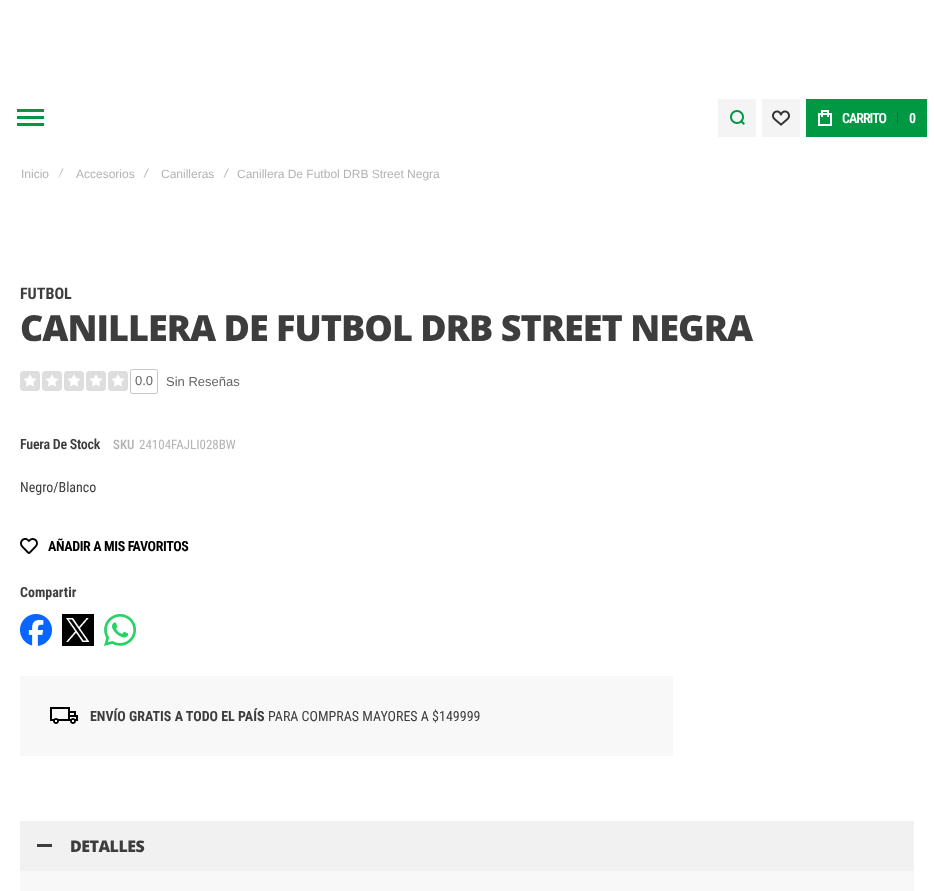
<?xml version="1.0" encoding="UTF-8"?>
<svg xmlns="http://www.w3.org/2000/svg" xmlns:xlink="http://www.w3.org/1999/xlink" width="934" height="891">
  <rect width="100%" height="100%" fill="#ffffff" />
  <rect x="17" y="109" width="27" height="3" fill="#009843" />
  <rect x="17" y="116" width="27" height="3" fill="#009843" />
  <rect x="17" y="123" width="27" height="3" fill="#009843" />
  <rect x="718" y="99" width="38" height="38" fill="#f4f4f4" />
  <image x="730" y="110" width="15" height="15" xlink:href="image1.png" />
  <rect x="762" y="99" width="38" height="38" fill="#f4f4f4" />
  <image x="772" y="110" width="18" height="16" xlink:href="image2.png" />
  <rect x="806" y="99" width="121" height="38" fill="#009843" />
  <image x="818" y="110" width="14" height="16" xlink:href="image3.png" />
  <rect x="897" y="112" width="1" height="12" fill="#007835" />
  <path d="M 62.5 168.5 h 1 l -4.5 9 h -0.5 z" fill="#b3b3b3" />
  <path d="M 148 168.5 h 1 l -4.5 9 h -1 z" fill="#b3b3b3" />
  <path d="M 228 168.5 h 1 l -4.5 9 h -1 z" fill="#b3b3b3" />
  <image x="20" y="371" width="20" height="20" xlink:href="image4.png" />
  <image x="42" y="371" width="20" height="20" xlink:href="image4.png" />
  <image x="64" y="371" width="20" height="20" xlink:href="image4.png" />
  <image x="86" y="371" width="20" height="20" xlink:href="image4.png" />
  <image x="108" y="371" width="20" height="20" xlink:href="image4.png" />
  <rect x="130.5" y="369.5" width="27" height="24" rx="2" fill="none" stroke="#c5c5c5" />
  <image x="20" y="537" width="18" height="17" xlink:href="image5.png" />
  <image x="20" y="614" width="32" height="32" xlink:href="image6.png" />
  <image x="62" y="614" width="32" height="32" xlink:href="image7.png" />
  <image x="104" y="614" width="32" height="32" xlink:href="image8.png" />
  <rect x="20" y="676" width="653" height="80" fill="#f8f8f8" />
  <image x="50" y="707" width="28" height="17" xlink:href="image9.png" />
  <rect x="20" y="821" width="894" height="50" fill="#f1f1f1" />
  <rect x="37" y="844" width="15" height="3" fill="#3d3d3d" />
  <rect x="20" y="871" width="894" height="20" fill="#f8f8f8" />
  <text x="842" y="123" style="font-family: Roboto Condensed; font-size: 14px; font-weight: 600; letter-spacing: -1px; fill: #ffffff">CARRITO</text>
  <text x="909" y="123" style="font-family: Roboto Condensed; font-size: 14px; font-weight: 600; letter-spacing: -1px; fill: #ffffff">0</text>
  <text x="21" y="178" style="font-family: Liberation Sans; font-size: 12px; fill: #b3b3b3">Inicio</text>
  <text x="76" y="178" style="font-family: Liberation Sans; font-size: 12px; fill: #b3b3b3">Accesorios</text>
  <text x="161" y="178" style="font-family: Liberation Sans; font-size: 12px; fill: #b3b3b3">Canilleras</text>
  <text x="237" y="178" style="font-family: Liberation Sans; font-size: 12px; fill: #b3b3b3">Canillera De Futbol DRB Street Negra</text>
  <text x="20" y="299" style="font-family: Roboto Condensed; font-size: 16px; font-weight: bold; fill: #3d3d3d">FUTBOL</text>
  <text x="20" y="341" style="font-family: Open Sans; font-size: 36px; font-weight: 800; letter-spacing: -1px; fill: #3d3d3d">CANILLERA DE FUTBOL DRB STREET NEGRA</text>
  <text x="135" y="385" style="font-family: Liberation Sans; font-size: 13px; fill: #666666">0.0</text>
  <text x="166" y="386" style="font-family: Liberation Sans; font-size: 13px; fill: #666666">Sin Reseñas</text>
  <text x="20" y="449" style="font-family: Roboto Condensed; font-size: 14px; font-weight: 600; letter-spacing: -0.25px; fill: #3d3d3d">Fuera De Stock</text>
  <text x="113" y="449" style="font-family: Roboto Condensed; font-size: 13px; font-weight: 500; fill: #b3b3b3">SKU</text>
  <text x="139" y="449" style="font-family: Roboto Condensed; font-size: 13px; fill: #b3b3b3">24104FAJLI028BW</text>
  <text x="20" y="492" style="font-family: Roboto Condensed; font-size: 14px; fill: #3d3d3d">Negro/Blanco</text>
  <text x="48" y="551" style="font-family: Roboto Condensed; font-size: 14px; font-weight: bold; letter-spacing: -0.4px; fill: #000000">AÑADIR A MIS FAVORITOS</text>
  <text x="20" y="597" style="font-family: Roboto Condensed; font-size: 14px; font-weight: bold; fill: #3d3d3d">Compartir</text>
  <text x="90" y="721" style="font-family: Roboto Condensed; font-size: 14px; font-weight: bold; fill: #3d3d3d">ENVÍO GRATIS A TODO EL PAÍS</text>
  <text x="268" y="721" style="font-family: Roboto Condensed; font-size: 14px; fill: #3d3d3d">PARA COMPRAS MAYORES A $149999</text>
  <text x="70" y="852" style="font-family: Open Sans; font-size: 16px; font-weight: 800; letter-spacing: -0.5px; fill: #3d3d3d">DETALLES</text>
</svg>
